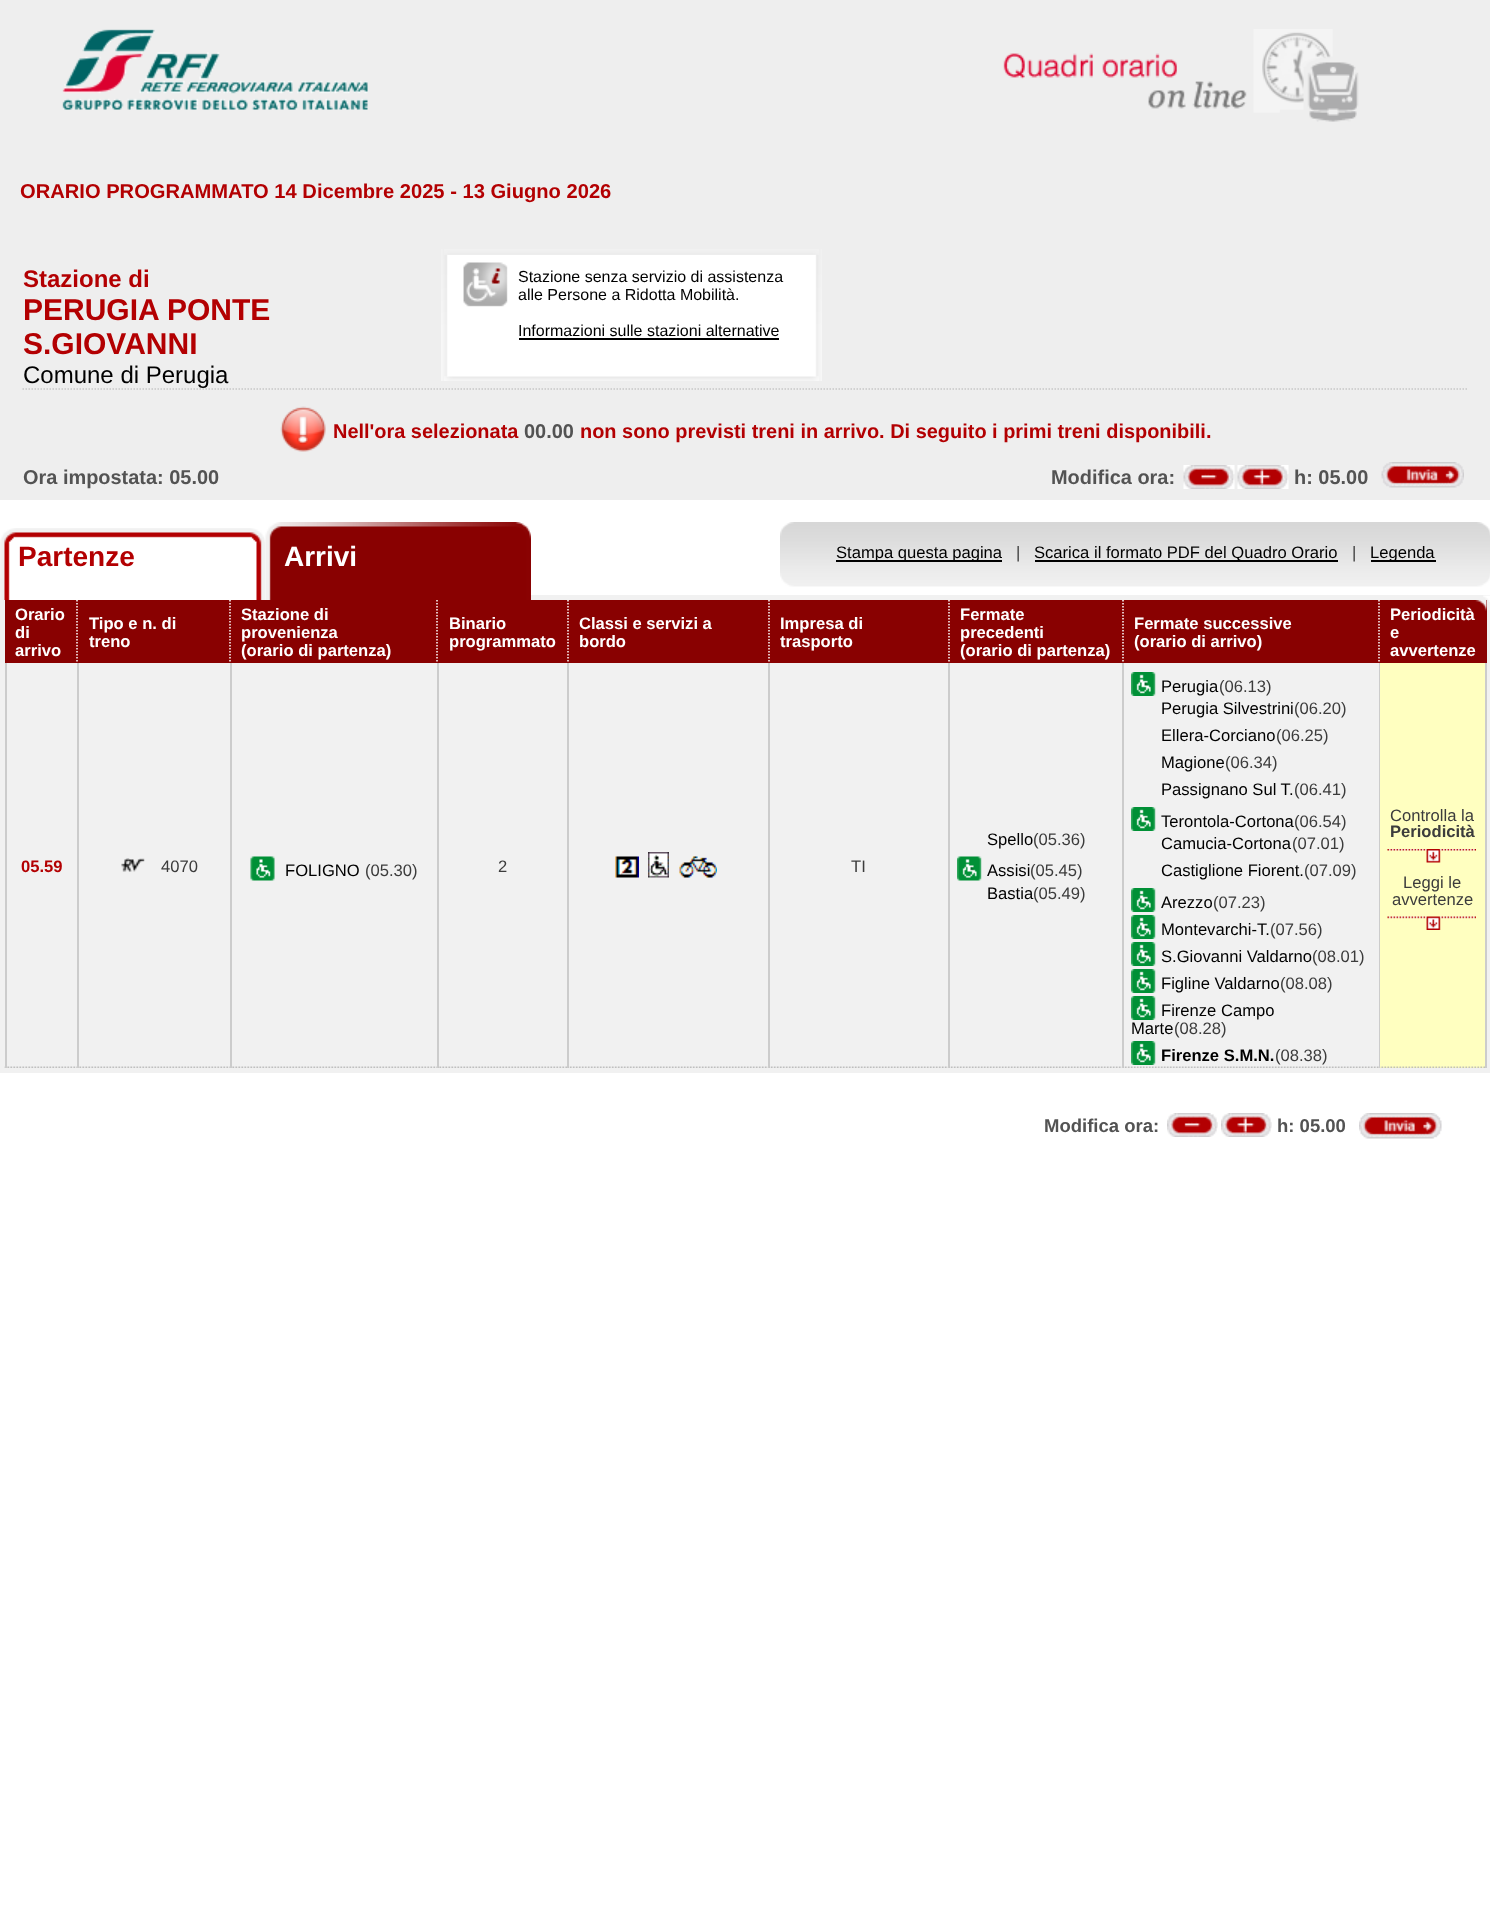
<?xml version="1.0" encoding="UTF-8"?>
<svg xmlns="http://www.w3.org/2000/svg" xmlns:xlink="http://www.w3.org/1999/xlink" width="1490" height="1918">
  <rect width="100%" height="100%" fill="#ffffff" />
  <rect width="1490" height="500" fill="#eeeeee" />
  <image x="62" y="29" width="306" height="81" xlink:href="image1.png" />
  <image x="1003" y="29" width="356" height="93" xlink:href="image2.png" />
  <path d="M 22.5 389 h 1446" fill="none" stroke="#c8c8c8" stroke-width="1.5" stroke-dasharray="1.5 1.5" />
  <image x="441" y="249" width="381" height="132" xlink:href="image3.png" />
  <image x="444" y="249" width="375" height="6" xlink:href="image4.png" />
  <image x="444" y="376" width="375" height="5" xlink:href="image5.png" />
  <image x="463" y="262" width="45" height="45" xlink:href="image6.png" />
  <rect x="519" y="338" width="260" height="2" fill="#000000" />
  <image x="280" y="406" width="46" height="46" xlink:href="image7.png" />
  <image x="1183" y="465" width="52" height="24" xlink:href="image8.png" />
  <image x="1237" y="465" width="52" height="24" xlink:href="image9.png" />
  <image x="1381" y="462" width="83" height="26" xlink:href="image10.png" />
  <rect x="531" y="595" width="959" height="5" fill="#f1f1f1" />
  <image x="1483" y="595" width="7" height="5" xlink:href="image11.png" />
  <image x="0" y="528" width="266" height="72" xlink:href="image12.png" />
  <image x="265" y="522" width="266" height="78" xlink:href="image13.png" />
  <image x="780" y="522" width="710" height="51" xlink:href="image14.png" />
  <rect x="836" y="560" width="166" height="2" fill="#000000" />
  <rect x="1035" y="560" width="303" height="2" fill="#000000" />
  <rect x="1371" y="560" width="65" height="2" fill="#000000" />
  <image x="780" y="573" width="710" height="14" xlink:href="image15.png" />
  <rect y="600" width="1490" height="473" fill="#f1f1f1" />
  <rect x="1489" y="600" width="1" height="2" fill="#f9f9f9" />
  <rect x="5" y="600" width="1482" height="63" fill="#890101" />
  <path d="M 77 600 v 63" fill="none" stroke="#ffffff" stroke-width="1.5" stroke-dasharray="1.5 1.5" />
  <path d="M 230 600 v 63" fill="none" stroke="#ffffff" stroke-width="1.5" stroke-dasharray="1.5 1.5" />
  <path d="M 437 600 v 63" fill="none" stroke="#ffffff" stroke-width="1.5" stroke-dasharray="1.5 1.5" />
  <path d="M 568 600 v 63" fill="none" stroke="#ffffff" stroke-width="1.5" stroke-dasharray="1.5 1.5" />
  <path d="M 769 600 v 63" fill="none" stroke="#ffffff" stroke-width="1.5" stroke-dasharray="1.5 1.5" />
  <path d="M 949 600 v 63" fill="none" stroke="#ffffff" stroke-width="1.5" stroke-dasharray="1.5 1.5" />
  <path d="M 1123 600 v 63" fill="none" stroke="#ffffff" stroke-width="1.5" stroke-dasharray="1.5 1.5" />
  <path d="M 1379 600 v 63" fill="none" stroke="#ffffff" stroke-width="1.5" stroke-dasharray="1.5 1.5" />
  <image x="1475" y="600" width="12" height="11" xlink:href="image16.png" />
  <image x="4" y="1066" width="73" height="2" xlink:href="image17.png" />
  <rect x="77" y="663" width="2" height="405" fill="#cccccc" />
  <rect x="5" y="663" width="2" height="405" fill="#cccccc" />
  <image x="79" y="1066" width="151" height="2" xlink:href="image18.png" />
  <rect x="230" y="663" width="2" height="405" fill="#cccccc" />
  <image x="121" y="858" width="24" height="14" xlink:href="image19.png" />
  <image x="232" y="1066" width="205" height="2" xlink:href="image20.png" />
  <rect x="437" y="663" width="2" height="405" fill="#cccccc" />
  <image x="250" y="856" width="25" height="25" xlink:href="image21.png" />
  <image x="438" y="1066" width="129" height="2" xlink:href="image22.png" />
  <rect x="567" y="663" width="2" height="405" fill="#cccccc" />
  <image x="568" y="1066" width="200" height="2" xlink:href="image23.png" />
  <rect x="768" y="663" width="2" height="405" fill="#cccccc" />
  <image x="615" y="856" width="24" height="22" xlink:href="image24.png" />
  <image x="648" y="852" width="21" height="26" xlink:href="image25.png" />
  <image x="679" y="856" width="38" height="22" xlink:href="image26.png" />
  <image x="769" y="1066" width="179" height="2" xlink:href="image27.png" />
  <rect x="948" y="663" width="2" height="405" fill="#cccccc" />
  <image x="949" y="1066" width="173" height="2" xlink:href="image28.png" />
  <rect x="1122" y="663" width="2" height="405" fill="#cccccc" />
  <image x="957" y="856" width="25" height="25" xlink:href="image29.png" />
  <image x="1123" y="1066" width="256" height="2" xlink:href="image30.png" />
  <rect x="1379" y="663" width="1" height="405" fill="#cccccc" />
  <image x="1131" y="672" width="25" height="24" xlink:href="image31.png" />
  <image x="1131" y="807" width="25" height="24" xlink:href="image31.png" />
  <image x="1131" y="888" width="25" height="24" xlink:href="image31.png" />
  <image x="1131" y="915" width="25" height="24" xlink:href="image31.png" />
  <image x="1131" y="942" width="25" height="24" xlink:href="image31.png" />
  <image x="1131" y="969" width="25" height="24" xlink:href="image31.png" />
  <image x="1131" y="996" width="25" height="24" xlink:href="image31.png" />
  <image x="1131" y="1041" width="25" height="24" xlink:href="image31.png" />
  <rect x="1380" y="663" width="105" height="405" fill="#ffffc0" />
  <image x="1380" y="1066" width="105" height="2" xlink:href="image32.png" />
  <rect x="1485" y="663" width="2" height="405" fill="#cccccc" />
  <image x="1387" y="849" width="89" height="14" xlink:href="image33.png" />
  <image x="1387" y="916" width="89" height="14" xlink:href="image34.png" />
  <image x="1167" y="1113" width="51" height="24" xlink:href="image35.png" />
  <image x="1221" y="1113" width="51" height="24" xlink:href="image36.png" />
  <image x="1359" y="1113" width="83" height="26" xlink:href="image37.png" />
  <text x="20" y="198" style="font-family: Liberation Sans; font-size: 20.15px; font-weight: bold; fill: #b30002">ORARIO PROGRAMMATO 14 Dicembre 2025 - 13 Giugno 2026</text>
  <text x="23" y="287" style="font-family: Liberation Sans; font-size: 24px; font-weight: bold; fill: #b30002">Stazione di</text>
  <text x="23" y="320" style="font-family: Liberation Sans; font-size: 30px; font-weight: bold; fill: #b30002">PERUGIA PONTE</text>
  <text x="23" y="354" style="font-family: Liberation Sans; font-size: 30px; font-weight: bold; fill: #b30002">S.GIOVANNI</text>
  <text x="23" y="383" style="font-family: Liberation Sans; font-size: 24px; fill: #000000">Comune di Perugia</text>
  <text x="518" y="282" style="font-family: Liberation Sans; font-size: 16px; fill: #000000">Stazione senza servizio di assistenza</text>
  <text x="518" y="300" style="font-family: Liberation Sans; font-size: 16px; fill: #000000">alle Persone a Ridotta Mobilità.</text>
  <text x="518" y="336" style="font-family: Liberation Sans; font-size: 16px; fill: #000000">Informazioni sulle stazioni alternative</text>
  <text x="333" y="438" style="font-family: Liberation Sans; font-size: 19.95px; font-weight: bold; fill: #b30002">Nell'ora selezionata</text>
  <text x="524" y="438" style="font-family: Liberation Sans; font-size: 19.95px; font-weight: bold; fill: #535353">00.00</text>
  <text x="580" y="438" style="font-family: Liberation Sans; font-size: 19.95px; font-weight: bold; fill: #b30002">non sono previsti treni in arrivo. Di seguito i primi treni disponibili.</text>
  <text x="23" y="484" style="font-family: Liberation Sans; font-size: 19.95px; font-weight: bold; fill: #535353">Ora impostata: 05.00</text>
  <text x="1051" y="484" style="font-family: Liberation Sans; font-size: 19.95px; font-weight: bold; fill: #535353">Modifica ora:</text>
  <text x="1294" y="484" style="font-family: Liberation Sans; font-size: 19.95px; font-weight: bold; fill: #535353">h: 05.00</text>
  <text x="18" y="566" style="font-family: Liberation Sans; font-size: 28px; font-weight: bold; fill: #b30002">Partenze</text>
  <text x="284" y="566" style="font-family: Liberation Sans; font-size: 28px; font-weight: bold; fill: #ffffff">Arrivi</text>
  <text x="836" y="558" style="font-family: Liberation Sans; font-size: 16.6px; fill: #000000">Stampa questa pagina</text>
  <text x="1016" y="558" style="font-family: Liberation Sans; font-size: 16.6px; fill: #3c3c3c">|</text>
  <text x="1034" y="558" style="font-family: Liberation Sans; font-size: 16.6px; fill: #000000">Scarica il formato PDF del Quadro Orario</text>
  <text x="1352" y="558" style="font-family: Liberation Sans; font-size: 16.6px; fill: #3c3c3c">|</text>
  <text x="1370" y="558" style="font-family: Liberation Sans; font-size: 16.6px; fill: #000000">Legenda</text>
  <text x="15" y="620" style="font-family: Liberation Sans; font-size: 16.6px; font-weight: bold; fill: #ffffff">Orario</text>
  <text x="15" y="638" style="font-family: Liberation Sans; font-size: 16.6px; font-weight: bold; fill: #ffffff">di</text>
  <text x="15" y="656" style="font-family: Liberation Sans; font-size: 16.6px; font-weight: bold; fill: #ffffff">arrivo</text>
  <text x="89" y="629" style="font-family: Liberation Sans; font-size: 16.6px; font-weight: bold; fill: #ffffff">Tipo e n. di</text>
  <text x="89" y="647" style="font-family: Liberation Sans; font-size: 16.6px; font-weight: bold; fill: #ffffff">treno</text>
  <text x="241" y="620" style="font-family: Liberation Sans; font-size: 16.6px; font-weight: bold; fill: #ffffff">Stazione di</text>
  <text x="241" y="638" style="font-family: Liberation Sans; font-size: 16.6px; font-weight: bold; fill: #ffffff">provenienza</text>
  <text x="241" y="656" style="font-family: Liberation Sans; font-size: 16.6px; font-weight: bold; fill: #ffffff">(orario di partenza)</text>
  <text x="449" y="629" style="font-family: Liberation Sans; font-size: 16.6px; font-weight: bold; fill: #ffffff">Binario</text>
  <text x="449" y="647" style="font-family: Liberation Sans; font-size: 16.6px; font-weight: bold; fill: #ffffff">programmato</text>
  <text x="579" y="629" style="font-family: Liberation Sans; font-size: 16.6px; font-weight: bold; fill: #ffffff">Classi e servizi a</text>
  <text x="579" y="647" style="font-family: Liberation Sans; font-size: 16.6px; font-weight: bold; fill: #ffffff">bordo</text>
  <text x="780" y="629" style="font-family: Liberation Sans; font-size: 16.6px; font-weight: bold; fill: #ffffff">Impresa di</text>
  <text x="780" y="647" style="font-family: Liberation Sans; font-size: 16.6px; font-weight: bold; fill: #ffffff">trasporto</text>
  <text x="960" y="620" style="font-family: Liberation Sans; font-size: 16.6px; font-weight: bold; fill: #ffffff">Fermate</text>
  <text x="960" y="638" style="font-family: Liberation Sans; font-size: 16.6px; font-weight: bold; fill: #ffffff">precedenti</text>
  <text x="960" y="656" style="font-family: Liberation Sans; font-size: 16.6px; font-weight: bold; fill: #ffffff">(orario di partenza)</text>
  <text x="1134" y="629" style="font-family: Liberation Sans; font-size: 16.6px; font-weight: bold; fill: #ffffff">Fermate successive</text>
  <text x="1134" y="647" style="font-family: Liberation Sans; font-size: 16.6px; font-weight: bold; fill: #ffffff">(orario di arrivo)</text>
  <text x="1390" y="620" style="font-family: Liberation Sans; font-size: 16.6px; font-weight: bold; fill: #ffffff">Periodicità</text>
  <text x="1390" y="638" style="font-family: Liberation Sans; font-size: 16.6px; font-weight: bold; fill: #ffffff">e</text>
  <text x="1390" y="656" style="font-family: Liberation Sans; font-size: 16.6px; font-weight: bold; fill: #ffffff">avvertenze</text>
  <text x="21" y="872" style="font-family: Liberation Sans; font-size: 16.6px; font-weight: bold; fill: #b30002">05.59</text>
  <text x="161" y="872" style="font-family: Liberation Sans; font-size: 16.6px; fill: #3c3c3c">4070</text>
  <text x="285" y="876" style="font-family: Liberation Sans; font-size: 16.6px; fill: #000000">FOLIGNO</text>
  <text x="365" y="876" style="font-family: Liberation Sans; font-size: 16.6px; fill: #3c3c3c">(05.30)</text>
  <text x="498" y="872" style="font-family: Liberation Sans; font-size: 16.6px; fill: #3c3c3c">2</text>
  <text x="851" y="872" style="font-family: Liberation Sans; font-size: 16.6px; fill: #3c3c3c">TI</text>
  <text x="987" y="845" style="font-family: Liberation Sans; font-size: 16.6px; fill: #000000">Spello</text>
  <text x="1033" y="845" style="font-family: Liberation Sans; font-size: 16.6px; fill: #3c3c3c">(05.36)</text>
  <text x="987" y="876" style="font-family: Liberation Sans; font-size: 16.6px; fill: #000000">Assisi</text>
  <text x="1030" y="876" style="font-family: Liberation Sans; font-size: 16.6px; fill: #3c3c3c">(05.45)</text>
  <text x="987" y="899" style="font-family: Liberation Sans; font-size: 16.6px; fill: #000000">Bastia</text>
  <text x="1033" y="899" style="font-family: Liberation Sans; font-size: 16.6px; fill: #3c3c3c">(05.49)</text>
  <text x="1161" y="692" style="font-family: Liberation Sans; font-size: 16.6px; fill: #000000">Perugia</text>
  <text x="1219" y="692" style="font-family: Liberation Sans; font-size: 16.6px; fill: #3c3c3c">(06.13)</text>
  <text x="1161" y="714" style="font-family: Liberation Sans; font-size: 16.6px; fill: #000000">Perugia Silvestrini</text>
  <text x="1294" y="714" style="font-family: Liberation Sans; font-size: 16.6px; fill: #3c3c3c">(06.20)</text>
  <text x="1161" y="741" style="font-family: Liberation Sans; font-size: 16.6px; fill: #000000">Ellera-Corciano</text>
  <text x="1276" y="741" style="font-family: Liberation Sans; font-size: 16.6px; fill: #3c3c3c">(06.25)</text>
  <text x="1161" y="768" style="font-family: Liberation Sans; font-size: 16.6px; fill: #000000">Magione</text>
  <text x="1225" y="768" style="font-family: Liberation Sans; font-size: 16.6px; fill: #3c3c3c">(06.34)</text>
  <text x="1161" y="795" style="font-family: Liberation Sans; font-size: 16.6px; fill: #000000">Passignano Sul T.</text>
  <text x="1294" y="795" style="font-family: Liberation Sans; font-size: 16.6px; fill: #3c3c3c">(06.41)</text>
  <text x="1161" y="827" style="font-family: Liberation Sans; font-size: 16.6px; fill: #000000">Terontola-Cortona</text>
  <text x="1294" y="827" style="font-family: Liberation Sans; font-size: 16.6px; fill: #3c3c3c">(06.54)</text>
  <text x="1161" y="849" style="font-family: Liberation Sans; font-size: 16.6px; fill: #000000">Camucia-Cortona</text>
  <text x="1292" y="849" style="font-family: Liberation Sans; font-size: 16.6px; fill: #3c3c3c">(07.01)</text>
  <text x="1161" y="876" style="font-family: Liberation Sans; font-size: 16.6px; fill: #000000">Castiglione Fiorent.</text>
  <text x="1304" y="876" style="font-family: Liberation Sans; font-size: 16.6px; fill: #3c3c3c">(07.09)</text>
  <text x="1161" y="908" style="font-family: Liberation Sans; font-size: 16.6px; fill: #000000">Arezzo</text>
  <text x="1213" y="908" style="font-family: Liberation Sans; font-size: 16.6px; fill: #3c3c3c">(07.23)</text>
  <text x="1161" y="935" style="font-family: Liberation Sans; font-size: 16.6px; fill: #000000">Montevarchi-T.</text>
  <text x="1270" y="935" style="font-family: Liberation Sans; font-size: 16.6px; fill: #3c3c3c">(07.56)</text>
  <text x="1161" y="962" style="font-family: Liberation Sans; font-size: 16.6px; fill: #000000">S.Giovanni Valdarno</text>
  <text x="1312" y="962" style="font-family: Liberation Sans; font-size: 16.6px; fill: #3c3c3c">(08.01)</text>
  <text x="1161" y="989" style="font-family: Liberation Sans; font-size: 16.6px; fill: #000000">Figline Valdarno</text>
  <text x="1280" y="989" style="font-family: Liberation Sans; font-size: 16.6px; fill: #3c3c3c">(08.08)</text>
  <text x="1161" y="1016" style="font-family: Liberation Sans; font-size: 16.6px; fill: #000000">Firenze Campo</text>
  <text x="1131" y="1034" style="font-family: Liberation Sans; font-size: 16.6px; fill: #000000">Marte</text>
  <text x="1174" y="1034" style="font-family: Liberation Sans; font-size: 16.6px; fill: #3c3c3c">(08.28)</text>
  <text x="1161" y="1061" style="font-family: Liberation Sans; font-size: 16.6px; font-weight: bold; fill: #000000">Firenze S.M.N.</text>
  <text x="1275" y="1061" style="font-family: Liberation Sans; font-size: 16.6px; fill: #3c3c3c">(08.38)</text>
  <text x="1390" y="821" style="font-family: Liberation Sans; font-size: 16.6px; fill: #3c3c3c">Controlla la</text>
  <text x="1390" y="837" style="font-family: Liberation Sans; font-size: 16.6px; font-weight: bold; fill: #3c3c3c">Periodicità</text>
  <text x="1403" y="888" style="font-family: Liberation Sans; font-size: 16.6px; fill: #3c3c3c">Leggi le</text>
  <text x="1392" y="905" style="font-family: Liberation Sans; font-size: 16.6px; fill: #3c3c3c">avvertenze</text>
  <text x="1044" y="1132" style="font-family: Liberation Sans; font-size: 18.5px; font-weight: bold; fill: #535353">Modifica ora:</text>
  <text x="1277" y="1132" style="font-family: Liberation Sans; font-size: 18.5px; font-weight: bold; fill: #535353">h: 05.00</text>
</svg>
